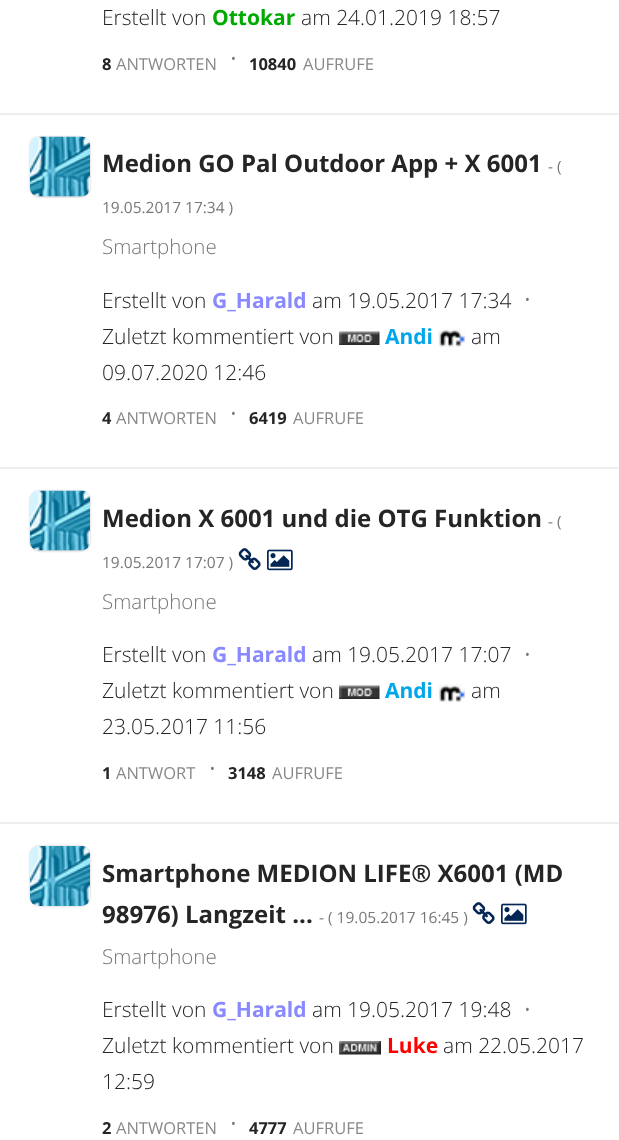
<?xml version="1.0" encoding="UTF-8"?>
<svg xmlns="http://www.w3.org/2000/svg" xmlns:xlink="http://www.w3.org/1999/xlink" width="619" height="1140">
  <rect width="100%" height="100%" fill="#ffffff" />
  <rect y="113" width="619" height="2" fill="#eeeeee" />
  <rect x="30" y="137" width="60" height="60" rx="9" fill="#c4c4c4" filter="blur(1px)" />
  <image x="30" y="136" width="60" height="61" xlink:href="image1.png" />
  <image x="339" y="331" width="41" height="14" xlink:href="image2.png" />
  <image x="438" y="328" width="27" height="19" xlink:href="image3.png" />
  <rect y="467" width="619" height="2" fill="#eeeeee" />
  <rect x="30" y="491" width="60" height="60" rx="9" fill="#c4c4c4" filter="blur(1px)" />
  <image x="30" y="490" width="60" height="61" xlink:href="image4.png" />
  <image x="238" y="548" width="23" height="22" xlink:href="image5.png" />
  <image x="267" y="549" width="26" height="22" xlink:href="image6.png" />
  <image x="339" y="685" width="41" height="14" xlink:href="image2.png" />
  <image x="438" y="684" width="27" height="18" xlink:href="image7.png" />
  <rect y="822" width="619" height="2" fill="#eeeeee" />
  <rect x="30" y="846" width="60" height="60" rx="9" fill="#c4c4c4" filter="blur(1px)" />
  <image x="30" y="846" width="60" height="60" xlink:href="image8.png" />
  <image x="472" y="902" width="23" height="22" xlink:href="image5.png" />
  <image x="501" y="903" width="26" height="22" xlink:href="image6.png" />
  <image x="339" y="1041" width="42" height="14" xlink:href="image9.png" />
  <text x="102" y="25" style="font-family: Open Sans; font-size: 21px; font-weight: 300; fill: #252525">Erstellt von</text>
  <text x="212" y="25" style="font-family: Open Sans; font-size: 21px; font-weight: bold; fill: #00aa00">Ottokar</text>
  <text x="301" y="25" style="font-family: Open Sans; font-size: 21px; font-weight: 300; fill: #252525">am 24.01.2019 18:57</text>
  <text x="102" y="70" style="font-family: Open Sans; font-size: 16.5px; font-weight: bold; fill: #252525">8</text>
  <text x="116" y="70" style="font-family: Open Sans; font-size: 16.5px; fill: #888888">ANTWORTEN</text>
  <text x="230" y="65" style="font-family: Open Sans; font-size: 18px; font-weight: 300; fill: #777777">•</text>
  <text x="249" y="70" style="font-family: Open Sans; font-size: 16.5px; font-weight: bold; fill: #252525">10840</text>
  <text x="303" y="70" style="font-family: Open Sans; font-size: 16.5px; fill: #888888">AUFRUFE</text>
  <text x="102" y="172" style="font-family: Open Sans; font-size: 24px; font-weight: bold; fill: #252525">Medion GO Pal Outdoor App + X 6001</text>
  <text x="548" y="172" style="font-family: Open Sans; font-size: 15.5px; fill: #777777">- (</text>
  <text x="102" y="213" style="font-family: Open Sans; font-size: 15.5px; fill: #777777">19.05.2017 17:34 )</text>
  <text x="102" y="254" style="font-family: Open Sans; font-size: 20.5px; font-weight: 300; fill: #777777">Smartphone</text>
  <text x="102" y="308" style="font-family: Open Sans; font-size: 21px; font-weight: 300; fill: #252525">Erstellt von</text>
  <text x="212" y="308" style="font-family: Open Sans; font-size: 21px; font-weight: bold; fill: #8888ff">G_Harald</text>
  <text x="312" y="308" style="font-family: Open Sans; font-size: 21px; font-weight: 300; fill: #252525">am 19.05.2017 17:34</text>
  <text x="524" y="306" style="font-family: Open Sans; font-size: 18px; font-weight: 300; fill: #777777">•</text>
  <text x="102" y="344" style="font-family: Open Sans; font-size: 21px; font-weight: 300; fill: #252525">Zuletzt kommentiert von</text>
  <text x="385" y="344" style="font-family: Open Sans; font-size: 21px; font-weight: bold; fill: #00a6eb">Andi</text>
  <text x="471" y="344" style="font-family: Open Sans; font-size: 21px; font-weight: 300; fill: #252525">am</text>
  <text x="102" y="380" style="font-family: Open Sans; font-size: 21px; font-weight: 300; fill: #252525">09.07.2020 12:46</text>
  <text x="102" y="424" style="font-family: Open Sans; font-size: 16.5px; font-weight: bold; fill: #252525">4</text>
  <text x="116" y="424" style="font-family: Open Sans; font-size: 16.5px; fill: #888888">ANTWORTEN</text>
  <text x="230" y="420" style="font-family: Open Sans; font-size: 18px; font-weight: 300; fill: #777777">•</text>
  <text x="249" y="424" style="font-family: Open Sans; font-size: 16.5px; font-weight: bold; fill: #252525">6419</text>
  <text x="293" y="424" style="font-family: Open Sans; font-size: 16.5px; fill: #888888">AUFRUFE</text>
  <text x="102" y="527" style="font-family: Open Sans; font-size: 24px; font-weight: bold; fill: #252525">Medion X 6001 und die OTG Funktion</text>
  <text x="548" y="527" style="font-family: Open Sans; font-size: 15.5px; fill: #777777">- (</text>
  <text x="102" y="568" style="font-family: Open Sans; font-size: 15.5px; fill: #777777">19.05.2017 17:07 )</text>
  <text x="102" y="609" style="font-family: Open Sans; font-size: 20.5px; font-weight: 300; fill: #777777">Smartphone</text>
  <text x="102" y="662" style="font-family: Open Sans; font-size: 21px; font-weight: 300; fill: #252525">Erstellt von</text>
  <text x="212" y="662" style="font-family: Open Sans; font-size: 21px; font-weight: bold; fill: #8888ff">G_Harald</text>
  <text x="312" y="662" style="font-family: Open Sans; font-size: 21px; font-weight: 300; fill: #252525">am 19.05.2017 17:07</text>
  <text x="524" y="661" style="font-family: Open Sans; font-size: 18px; font-weight: 300; fill: #777777">•</text>
  <text x="102" y="698" style="font-family: Open Sans; font-size: 21px; font-weight: 300; fill: #252525">Zuletzt kommentiert von</text>
  <text x="385" y="698" style="font-family: Open Sans; font-size: 21px; font-weight: bold; fill: #00a6eb">Andi</text>
  <text x="471" y="698" style="font-family: Open Sans; font-size: 21px; font-weight: 300; fill: #252525">am</text>
  <text x="102" y="734" style="font-family: Open Sans; font-size: 21px; font-weight: 300; fill: #252525">23.05.2017 11:56</text>
  <text x="102" y="779" style="font-family: Open Sans; font-size: 16.5px; font-weight: bold; fill: #252525">1</text>
  <text x="116" y="779" style="font-family: Open Sans; font-size: 16.5px; fill: #888888">ANTWORT</text>
  <text x="209" y="775" style="font-family: Open Sans; font-size: 18px; font-weight: 300; fill: #777777">•</text>
  <text x="228" y="779" style="font-family: Open Sans; font-size: 16.5px; font-weight: bold; fill: #252525">3148</text>
  <text x="272" y="779" style="font-family: Open Sans; font-size: 16.5px; fill: #888888">AUFRUFE</text>
  <text x="102" y="882" style="font-family: Open Sans; font-size: 24px; font-weight: bold; fill: #252525">Smartphone MEDION LIFE® X6001 (MD</text>
  <text x="102" y="923" style="font-family: Open Sans; font-size: 24px; font-weight: bold; fill: #252525">98976) Langzeit ...</text>
  <text x="319" y="923" style="font-family: Open Sans; font-size: 15.5px; fill: #777777">- ( 19.05.2017 16:45 )</text>
  <text x="102" y="964" style="font-family: Open Sans; font-size: 20.5px; font-weight: 300; fill: #777777">Smartphone</text>
  <text x="102" y="1017" style="font-family: Open Sans; font-size: 21px; font-weight: 300; fill: #252525">Erstellt von</text>
  <text x="212" y="1017" style="font-family: Open Sans; font-size: 21px; font-weight: bold; fill: #8888ff">G_Harald</text>
  <text x="312" y="1017" style="font-family: Open Sans; font-size: 21px; font-weight: 300; fill: #252525">am 19.05.2017 19:48</text>
  <text x="524" y="1016" style="font-family: Open Sans; font-size: 18px; font-weight: 300; fill: #777777">•</text>
  <text x="102" y="1053" style="font-family: Open Sans; font-size: 21px; font-weight: 300; fill: #252525">Zuletzt kommentiert von</text>
  <text x="387" y="1053" style="font-family: Open Sans; font-size: 21px; font-weight: bold; fill: #ff0000">Luke</text>
  <text x="443" y="1053" style="font-family: Open Sans; font-size: 21px; font-weight: 300; fill: #252525">am 22.05.2017</text>
  <text x="102" y="1089" style="font-family: Open Sans; font-size: 21px; font-weight: 300; fill: #252525">12:59</text>
  <text x="102" y="1134" style="font-family: Open Sans; font-size: 16.5px; font-weight: bold; fill: #252525">2</text>
  <text x="116" y="1134" style="font-family: Open Sans; font-size: 16.5px; fill: #888888">ANTWORTEN</text>
  <text x="230" y="1130" style="font-family: Open Sans; font-size: 18px; font-weight: 300; fill: #777777">•</text>
  <text x="249" y="1134" style="font-family: Open Sans; font-size: 16.5px; font-weight: bold; fill: #252525">4777</text>
  <text x="293" y="1134" style="font-family: Open Sans; font-size: 16.5px; fill: #888888">AUFRUFE</text>
</svg>
